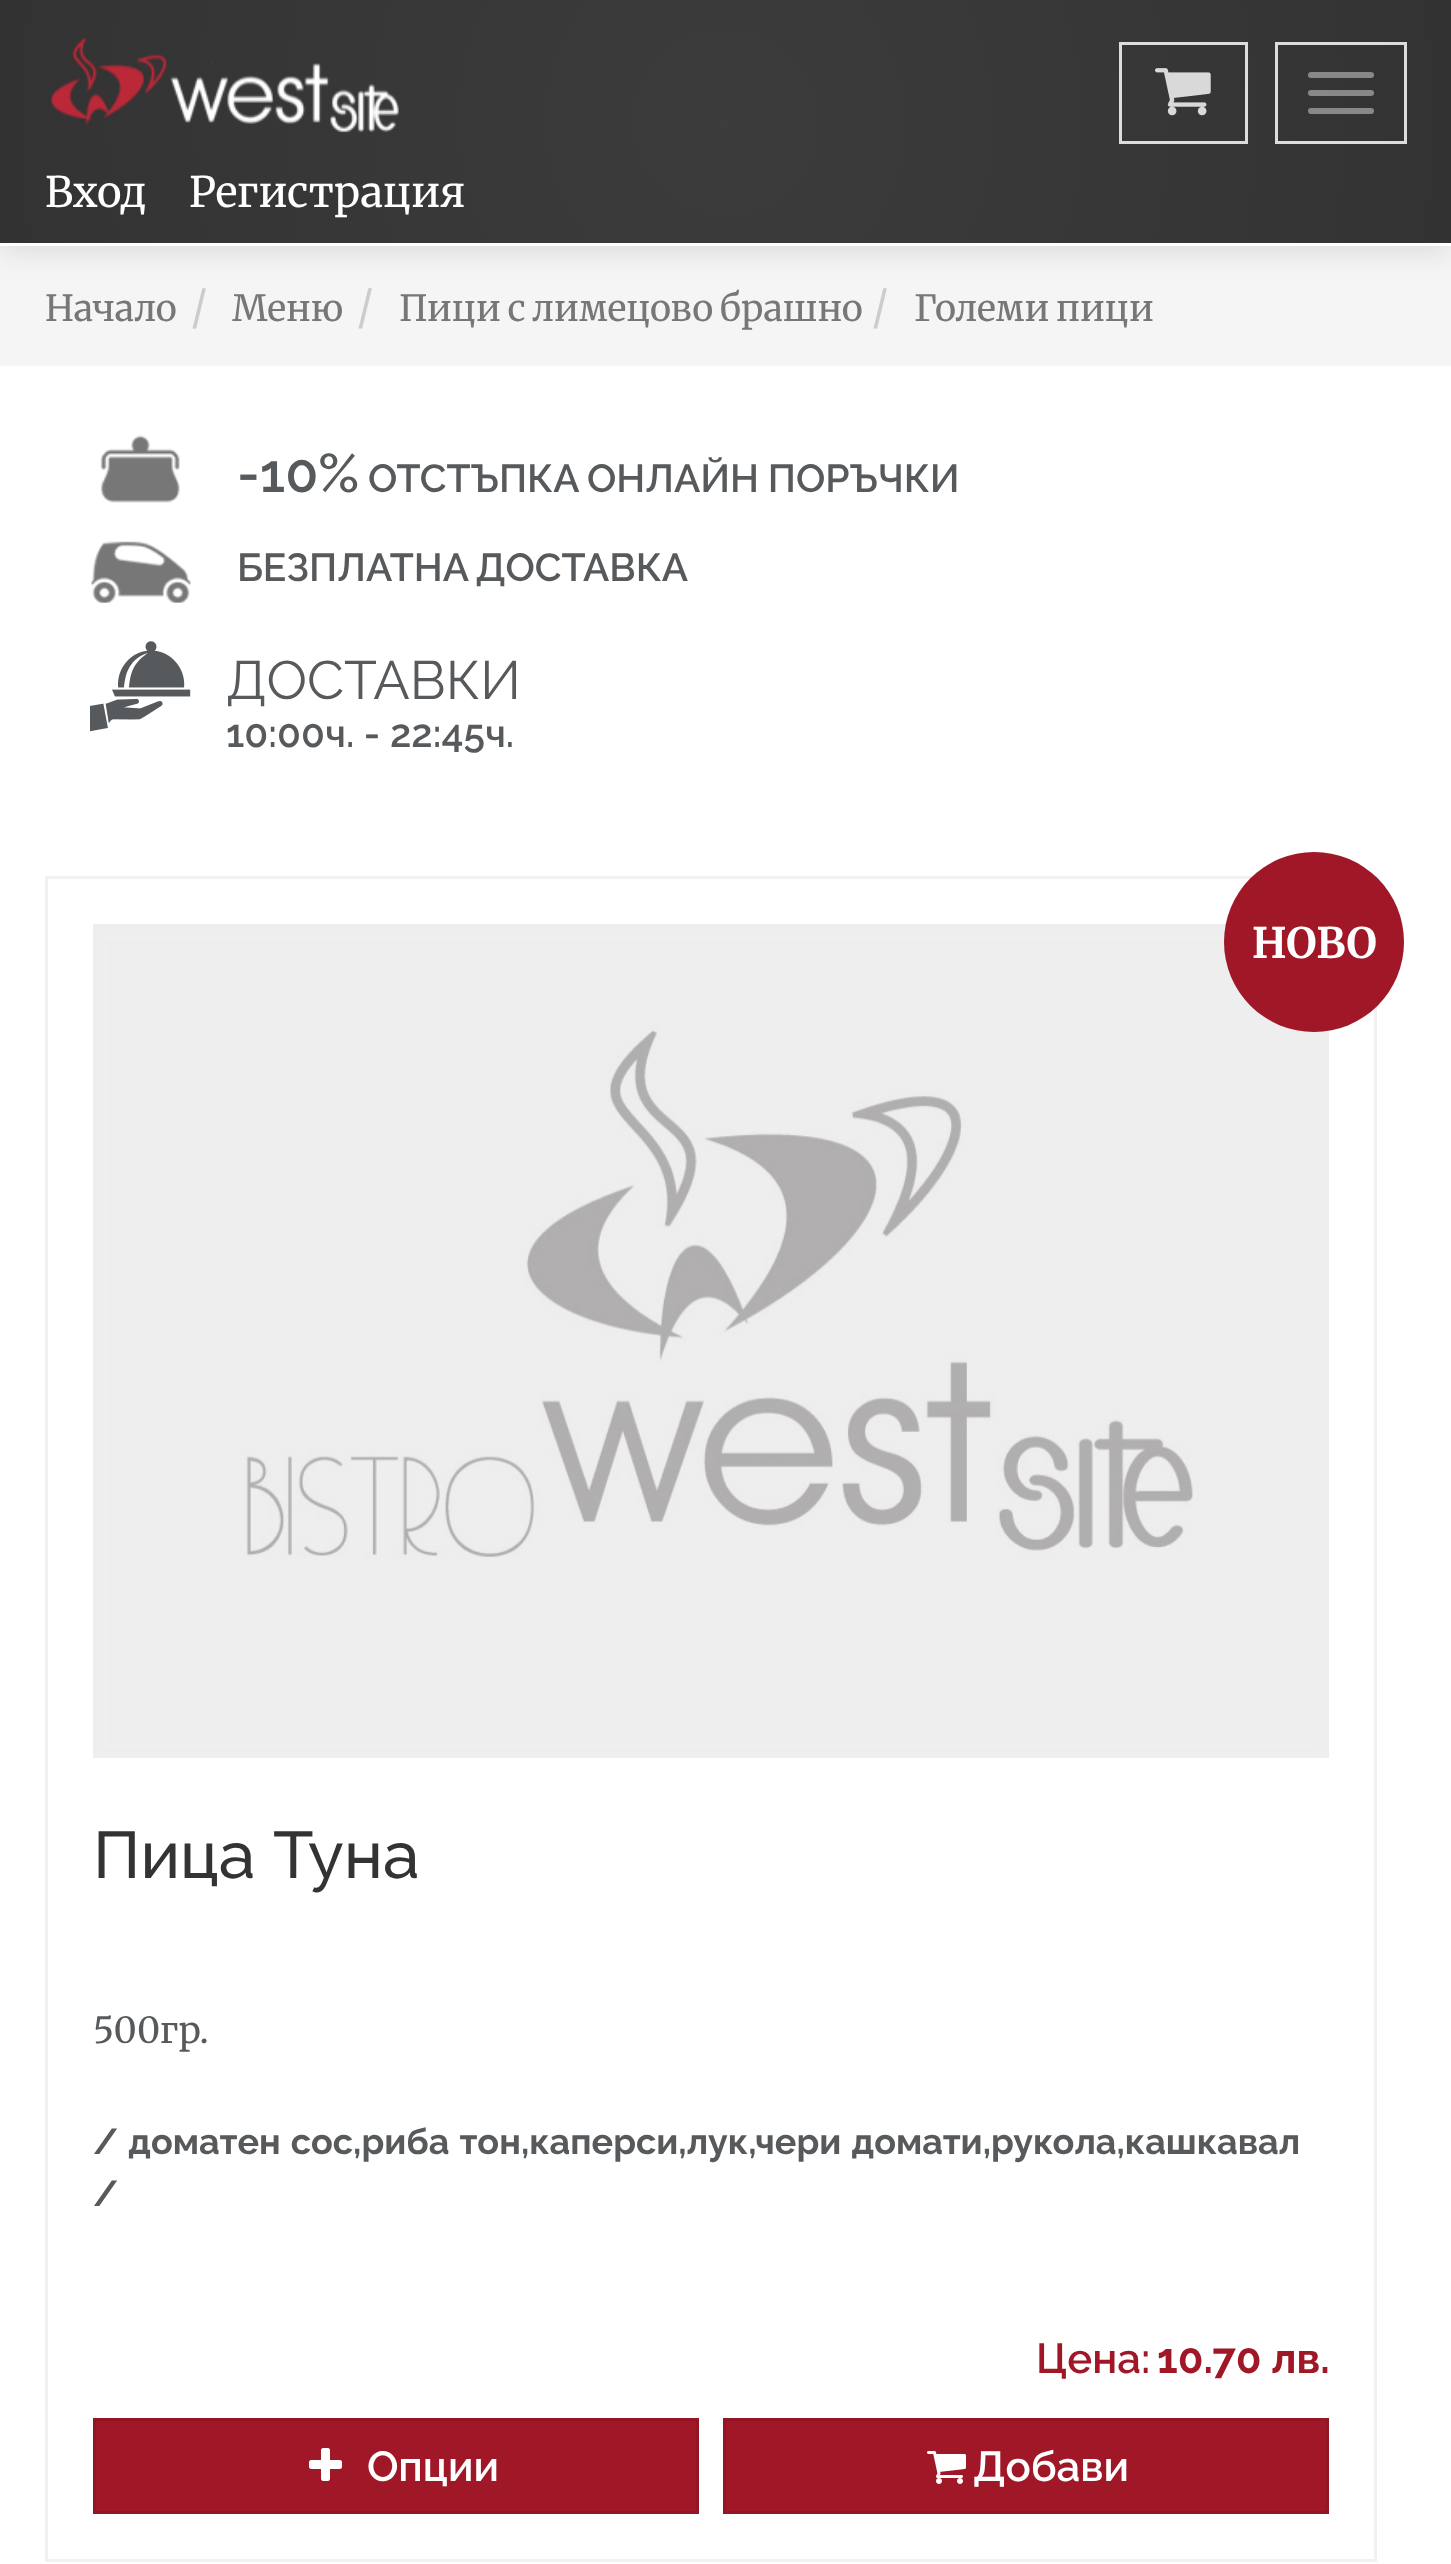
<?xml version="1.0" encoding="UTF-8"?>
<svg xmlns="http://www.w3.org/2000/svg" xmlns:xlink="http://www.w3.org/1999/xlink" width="1451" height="2564">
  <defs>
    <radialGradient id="g1" gradientUnits="userSpaceOnUse" cx="726" cy="122" r="2178"><stop offset="0" stop-color="#3d3c3c" /><stop offset="0.5" stop-color="#2f2e2e" /><stop offset="1" stop-color="#313131" /></radialGradient>
  </defs>
  <rect width="100%" height="100%" fill="#f5f5f5" />
  <rect y="6" width="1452" height="246" fill="#000000" fill-opacity="0.1" filter="blur(15px)" />
  <rect width="1451" height="243" fill="url(#g1)" />
  <rect y="243" width="1451" height="3" fill="#ffffff" />
  <image x="51" y="37" width="348" height="96" xlink:href="image1.png" />
  <rect x="1120.5" y="43.5" width="126" height="99" fill="none" stroke="#dddddd" stroke-width="3" />
  <image x="1155" y="68" width="56" height="48" xlink:href="image2.png" />
  <rect x="1276.5" y="43.5" width="129" height="99" fill="none" stroke="#dddddd" stroke-width="3" />
  <rect x="1308" y="72" width="66" height="6" rx="3" fill="#888888" />
  <rect x="1308" y="90" width="66" height="6" rx="3" fill="#888888" />
  <rect x="1308" y="108" width="66" height="6" rx="3" fill="#888888" />
  <rect y="366" width="1451" height="2198" fill="#ffffff" />
  <image x="100" y="435" width="80" height="68" xlink:href="image3.png" />
  <image x="91" y="541" width="100" height="62" xlink:href="image4.png" />
  <image x="90" y="641" width="101" height="91" xlink:href="image5.png" />
  <rect x="46.5" y="877.5" width="1329" height="1683" fill="none" stroke="#f1f1f1" stroke-width="3" />
  <rect x="99" y="930" width="1224" height="822" fill="none" stroke="#eeeeee" stroke-width="12" />
  <image x="105" y="936" width="1212" height="810" xlink:href="image6.png" />
  <circle cx="1314" cy="942" r="90" fill="#a01827" />
  <rect x="94.5" y="2419.5" width="603" height="93" fill="#a01827" stroke="#921623" stroke-width="3" />
  <image x="309" y="2448" width="33" height="33" xlink:href="image7.png" />
  <rect x="724.5" y="2419.5" width="603" height="93" fill="#a01827" stroke="#921623" stroke-width="3" />
  <image x="927" y="2451" width="39" height="33" xlink:href="image8.png" />
  <text x="45" y="207" style="font-family: Merriweather; font-size: 42px; fill: #ffffff">Вход</text>
  <text x="189" y="207" style="font-family: Merriweather; font-size: 42px; fill: #ffffff">Регистрация</text>
  <text x="45" y="321" style="font-family: Merriweather; font-size: 36px; fill: #777777">Начало</text>
  <text x="191" y="321" style="font-family: Merriweather; font-size: 42px; fill: #cccccc">/</text>
  <text x="232" y="321" style="font-family: Merriweather; font-size: 36px; fill: #777777">Меню</text>
  <text x="357" y="321" style="font-family: Merriweather; font-size: 42px; fill: #cccccc">/</text>
  <text x="399" y="321" word-spacing="-2" style="font-family: Merriweather; font-size: 36px; fill: #777777">Пици с лимецово брашно</text>
  <text x="872" y="321" style="font-family: Merriweather; font-size: 42px; fill: #cccccc">/</text>
  <text x="914" y="321" word-spacing="-2" style="font-family: Merriweather; font-size: 36px; fill: #777777">Големи пици</text>
  <text x="237" y="492" style="font-family: Raleway; font-size: 54px; font-weight: 600; fill: #575a5c">-10%</text>
  <text x="368" y="492" word-spacing="-1" style="font-family: Raleway; font-size: 39px; font-weight: 600; fill: #575a5c">ОТСТЪПКА ОНЛАЙН ПОРЪЧКИ</text>
  <text x="237" y="581" word-spacing="-2" style="font-family: Raleway; font-size: 39px; font-weight: 600; fill: #575a5c">БЕЗПЛАТНА ДОСТАВКА</text>
  <text x="226" y="699" style="font-family: Raleway; font-size: 54px; fill: #575a5c">ДОСТАВКИ</text>
  <text x="226" y="747" style="font-family: Raleway; font-size: 39px; font-weight: 600; fill: #575a5c">10:00ч. - 22:45ч.</text>
  <text x="1252" y="958" style="font-family: Merriweather; font-size: 42px; font-weight: bold; fill: #ffffff">НОВО</text>
  <text x="93" y="1878" word-spacing="3" style="font-family: Raleway; font-size: 66px; font-weight: 500; fill: #333333">Пица Туна</text>
  <text x="93" y="2043" style="font-family: Merriweather; font-size: 36px; fill: #575a5c">500гр.</text>
  <text x="93" y="2154" word-spacing="1.5" style="font-family: Raleway; font-size: 36px; font-weight: bold; fill: #575a5c">/ доматен сос,риба тон,каперси,лук,чери домати,рукола,кашкавал</text>
  <text x="93" y="2206" style="font-family: Raleway; font-size: 36px; font-weight: bold; fill: #575a5c">/</text>
  <text x="1036" y="2373" style="font-family: Raleway; font-size: 42px; font-weight: 600; fill: #a01827">Цена:</text>
  <text x="1157" y="2373" style="font-family: Raleway; font-size: 42px; font-weight: bold; fill: #a01827">10.70 лв.</text>
  <text x="367" y="2481" style="font-family: Raleway; font-size: 42px; font-weight: 600; fill: #ffffff">Опции</text>
  <text x="973" y="2481" style="font-family: Raleway; font-size: 42px; font-weight: 600; fill: #ffffff">Добави</text>
</svg>
